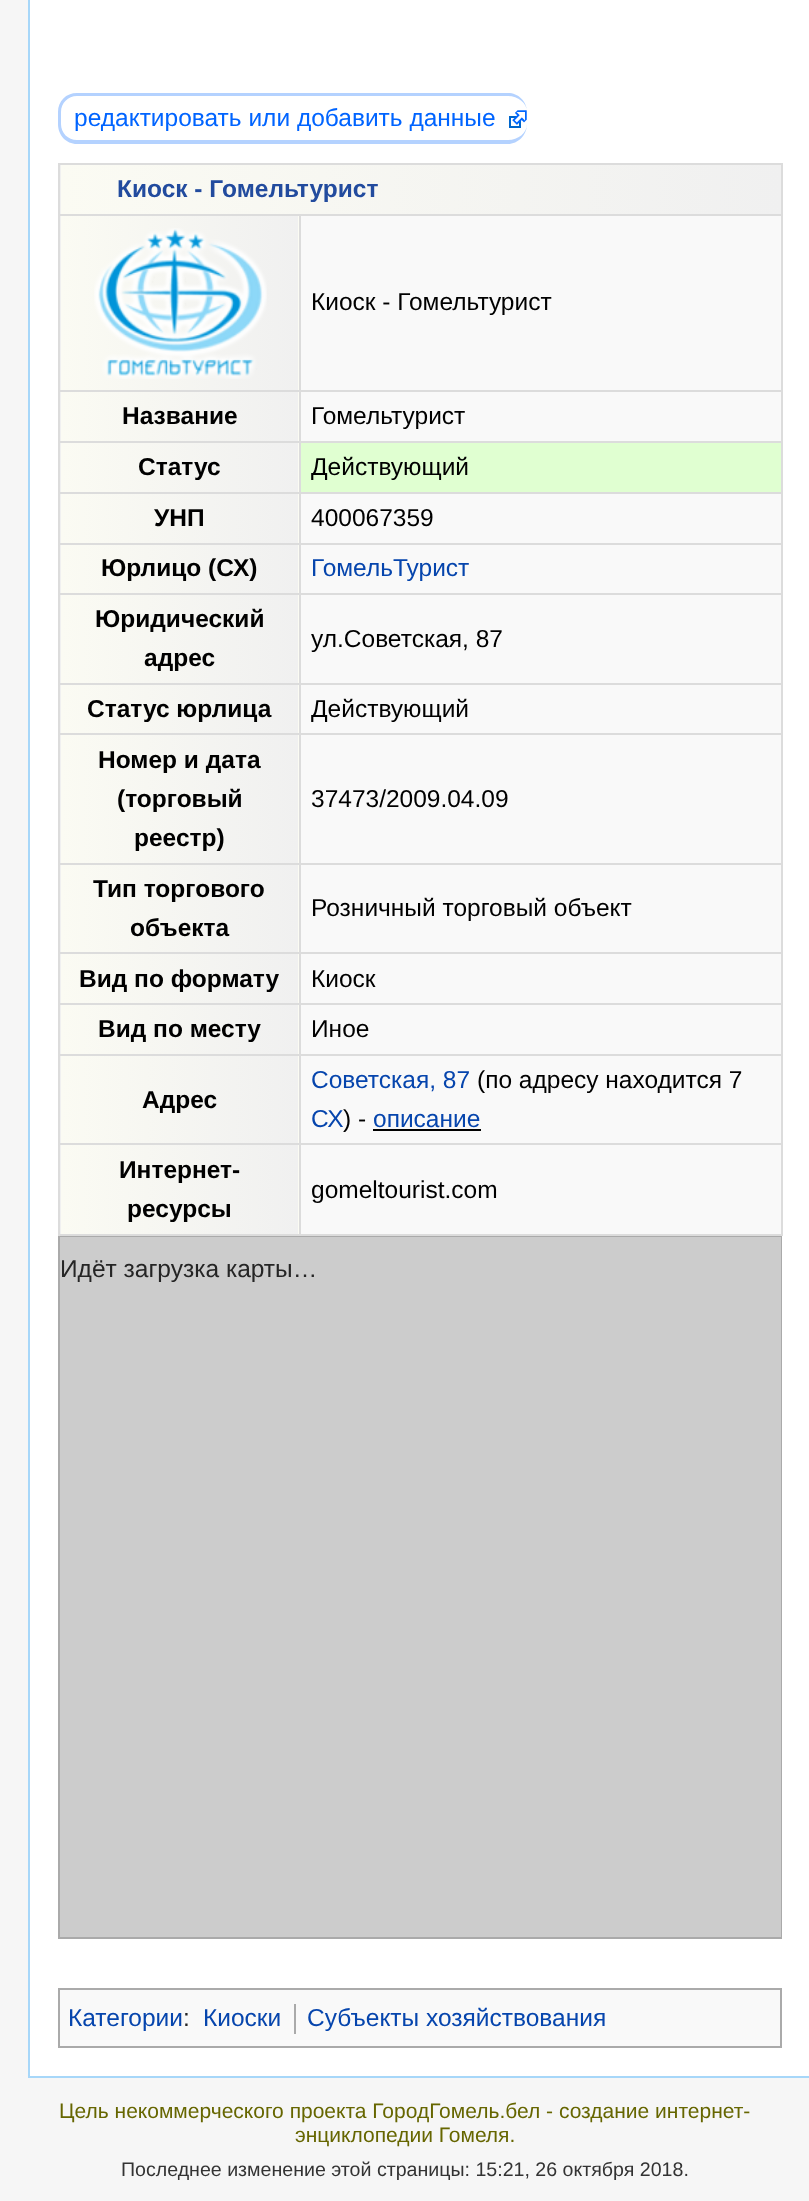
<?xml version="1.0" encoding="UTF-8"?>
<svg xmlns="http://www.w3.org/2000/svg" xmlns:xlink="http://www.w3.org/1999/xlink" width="809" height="2201">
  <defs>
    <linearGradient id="g1" gradientUnits="userSpaceOnUse" x1="-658" y1="188" x2="61" y2="188"><stop offset="0" stop-color="#fbfbf3" /><stop offset="1" stop-color="#f0f0f0" /></linearGradient>
    <linearGradient id="g2" gradientUnits="userSpaceOnUse" x1="61" y1="188" x2="781" y2="188"><stop offset="0" stop-color="#fbfbf3" /><stop offset="1" stop-color="#f0f0f0" /></linearGradient>
    <linearGradient id="g3" gradientUnits="userSpaceOnUse" x1="-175" y1="302" x2="61" y2="302"><stop offset="0" stop-color="#fbfbf3" /><stop offset="1" stop-color="#f0f0f0" /></linearGradient>
    <linearGradient id="g4" gradientUnits="userSpaceOnUse" x1="298" y1="302" x2="534" y2="302"><stop offset="0" stop-color="#fbfbf3" /><stop offset="1" stop-color="#f0f0f0" /></linearGradient>
    <linearGradient id="g5" gradientUnits="userSpaceOnUse" x1="-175" y1="416" x2="61" y2="416"><stop offset="0" stop-color="#fbfbf3" /><stop offset="1" stop-color="#f0f0f0" /></linearGradient>
    <linearGradient id="g6" gradientUnits="userSpaceOnUse" x1="298" y1="416" x2="534" y2="416"><stop offset="0" stop-color="#fbfbf3" /><stop offset="1" stop-color="#f0f0f0" /></linearGradient>
    <linearGradient id="g7" gradientUnits="userSpaceOnUse" x1="-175" y1="466" x2="61" y2="466"><stop offset="0" stop-color="#fbfbf3" /><stop offset="1" stop-color="#f0f0f0" /></linearGradient>
    <linearGradient id="g8" gradientUnits="userSpaceOnUse" x1="298" y1="466" x2="534" y2="466"><stop offset="0" stop-color="#fbfbf3" /><stop offset="1" stop-color="#f0f0f0" /></linearGradient>
    <linearGradient id="g9" gradientUnits="userSpaceOnUse" x1="-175" y1="517" x2="61" y2="517"><stop offset="0" stop-color="#fbfbf3" /><stop offset="1" stop-color="#f0f0f0" /></linearGradient>
    <linearGradient id="g10" gradientUnits="userSpaceOnUse" x1="298" y1="517" x2="534" y2="517"><stop offset="0" stop-color="#fbfbf3" /><stop offset="1" stop-color="#f0f0f0" /></linearGradient>
    <linearGradient id="g11" gradientUnits="userSpaceOnUse" x1="-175" y1="568" x2="61" y2="568"><stop offset="0" stop-color="#fbfbf3" /><stop offset="1" stop-color="#f0f0f0" /></linearGradient>
    <linearGradient id="g12" gradientUnits="userSpaceOnUse" x1="298" y1="568" x2="534" y2="568"><stop offset="0" stop-color="#fbfbf3" /><stop offset="1" stop-color="#f0f0f0" /></linearGradient>
    <linearGradient id="g13" gradientUnits="userSpaceOnUse" x1="-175" y1="638" x2="61" y2="638"><stop offset="0" stop-color="#fbfbf3" /><stop offset="1" stop-color="#f0f0f0" /></linearGradient>
    <linearGradient id="g14" gradientUnits="userSpaceOnUse" x1="298" y1="638" x2="534" y2="638"><stop offset="0" stop-color="#fbfbf3" /><stop offset="1" stop-color="#f0f0f0" /></linearGradient>
    <linearGradient id="g15" gradientUnits="userSpaceOnUse" x1="-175" y1="708" x2="61" y2="708"><stop offset="0" stop-color="#fbfbf3" /><stop offset="1" stop-color="#f0f0f0" /></linearGradient>
    <linearGradient id="g16" gradientUnits="userSpaceOnUse" x1="298" y1="708" x2="534" y2="708"><stop offset="0" stop-color="#fbfbf3" /><stop offset="1" stop-color="#f0f0f0" /></linearGradient>
    <linearGradient id="g17" gradientUnits="userSpaceOnUse" x1="-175" y1="798" x2="61" y2="798"><stop offset="0" stop-color="#fbfbf3" /><stop offset="1" stop-color="#f0f0f0" /></linearGradient>
    <linearGradient id="g18" gradientUnits="userSpaceOnUse" x1="298" y1="798" x2="534" y2="798"><stop offset="0" stop-color="#fbfbf3" /><stop offset="1" stop-color="#f0f0f0" /></linearGradient>
    <linearGradient id="g19" gradientUnits="userSpaceOnUse" x1="-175" y1="908" x2="61" y2="908"><stop offset="0" stop-color="#fbfbf3" /><stop offset="1" stop-color="#f0f0f0" /></linearGradient>
    <linearGradient id="g20" gradientUnits="userSpaceOnUse" x1="298" y1="908" x2="534" y2="908"><stop offset="0" stop-color="#fbfbf3" /><stop offset="1" stop-color="#f0f0f0" /></linearGradient>
    <linearGradient id="g21" gradientUnits="userSpaceOnUse" x1="-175" y1="1028" x2="61" y2="1028"><stop offset="0" stop-color="#fbfbf3" /><stop offset="1" stop-color="#f0f0f0" /></linearGradient>
    <linearGradient id="g22" gradientUnits="userSpaceOnUse" x1="298" y1="1028" x2="534" y2="1028"><stop offset="0" stop-color="#fbfbf3" /><stop offset="1" stop-color="#f0f0f0" /></linearGradient>
    <linearGradient id="g23" gradientUnits="userSpaceOnUse" x1="-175" y1="1099" x2="61" y2="1099"><stop offset="0" stop-color="#fbfbf3" /><stop offset="1" stop-color="#f0f0f0" /></linearGradient>
    <linearGradient id="g24" gradientUnits="userSpaceOnUse" x1="298" y1="1099" x2="534" y2="1099"><stop offset="0" stop-color="#fbfbf3" /><stop offset="1" stop-color="#f0f0f0" /></linearGradient>
    <linearGradient id="g25" gradientUnits="userSpaceOnUse" x1="61" y1="302" x2="298" y2="302"><stop offset="0" stop-color="#fbfbf3" /><stop offset="1" stop-color="#f0f0f0" /></linearGradient>
    <linearGradient id="g26" gradientUnits="userSpaceOnUse" x1="61" y1="416" x2="298" y2="416"><stop offset="0" stop-color="#fbfbf3" /><stop offset="1" stop-color="#f0f0f0" /></linearGradient>
    <linearGradient id="g27" gradientUnits="userSpaceOnUse" x1="61" y1="466" x2="298" y2="466"><stop offset="0" stop-color="#fbfbf3" /><stop offset="1" stop-color="#f0f0f0" /></linearGradient>
    <linearGradient id="g28" gradientUnits="userSpaceOnUse" x1="61" y1="517" x2="298" y2="517"><stop offset="0" stop-color="#fbfbf3" /><stop offset="1" stop-color="#f0f0f0" /></linearGradient>
    <linearGradient id="g29" gradientUnits="userSpaceOnUse" x1="61" y1="568" x2="298" y2="568"><stop offset="0" stop-color="#fbfbf3" /><stop offset="1" stop-color="#f0f0f0" /></linearGradient>
    <linearGradient id="g30" gradientUnits="userSpaceOnUse" x1="61" y1="638" x2="298" y2="638"><stop offset="0" stop-color="#fbfbf3" /><stop offset="1" stop-color="#f0f0f0" /></linearGradient>
    <linearGradient id="g31" gradientUnits="userSpaceOnUse" x1="61" y1="708" x2="298" y2="708"><stop offset="0" stop-color="#fbfbf3" /><stop offset="1" stop-color="#f0f0f0" /></linearGradient>
    <linearGradient id="g32" gradientUnits="userSpaceOnUse" x1="61" y1="798" x2="298" y2="798"><stop offset="0" stop-color="#fbfbf3" /><stop offset="1" stop-color="#f0f0f0" /></linearGradient>
    <linearGradient id="g33" gradientUnits="userSpaceOnUse" x1="61" y1="908" x2="298" y2="908"><stop offset="0" stop-color="#fbfbf3" /><stop offset="1" stop-color="#f0f0f0" /></linearGradient>
    <linearGradient id="g34" gradientUnits="userSpaceOnUse" x1="-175" y1="978" x2="61" y2="978"><stop offset="0" stop-color="#fbfbf3" /><stop offset="1" stop-color="#f0f0f0" /></linearGradient>
    <linearGradient id="g35" gradientUnits="userSpaceOnUse" x1="61" y1="978" x2="298" y2="978"><stop offset="0" stop-color="#fbfbf3" /><stop offset="1" stop-color="#f0f0f0" /></linearGradient>
    <linearGradient id="g36" gradientUnits="userSpaceOnUse" x1="298" y1="978" x2="534" y2="978"><stop offset="0" stop-color="#fbfbf3" /><stop offset="1" stop-color="#f0f0f0" /></linearGradient>
    <linearGradient id="g37" gradientUnits="userSpaceOnUse" x1="61" y1="1028" x2="298" y2="1028"><stop offset="0" stop-color="#fbfbf3" /><stop offset="1" stop-color="#f0f0f0" /></linearGradient>
    <linearGradient id="g38" gradientUnits="userSpaceOnUse" x1="61" y1="1099" x2="298" y2="1099"><stop offset="0" stop-color="#fbfbf3" /><stop offset="1" stop-color="#f0f0f0" /></linearGradient>
    <linearGradient id="g39" gradientUnits="userSpaceOnUse" x1="-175" y1="1189" x2="61" y2="1189"><stop offset="0" stop-color="#fbfbf3" /><stop offset="1" stop-color="#f0f0f0" /></linearGradient>
    <linearGradient id="g40" gradientUnits="userSpaceOnUse" x1="61" y1="1189" x2="298" y2="1189"><stop offset="0" stop-color="#fbfbf3" /><stop offset="1" stop-color="#f0f0f0" /></linearGradient>
    <linearGradient id="g41" gradientUnits="userSpaceOnUse" x1="298" y1="1189" x2="534" y2="1189"><stop offset="0" stop-color="#fbfbf3" /><stop offset="1" stop-color="#f0f0f0" /></linearGradient>
  </defs>
  <rect width="100%" height="100%" fill="#f6f6f6" />
  <rect x="30" width="779" height="2076" fill="#ffffff" />
  <rect x="28" y="2076" width="781" height="2" fill="#a7d7f9" />
  <rect x="28" width="2" height="2077" fill="#a7d7f9" />
  <image x="509" y="110" width="18" height="18" xlink:href="image1.png" />
  <path d="M 77 93 h 431 c 10 0 19 8 19 19 v 12 c 0 11 -9 20 -19 20 h -431 c -11 0 -19 -9 -19 -20 v -12 c 0 -11 8 -19 19 -19 z m 0 3 h 431 c 10 0 19 7 19 16 v 12 c 0 9 -9 16 -19 16 h -431 c -9 0 -16 -7 -16 -16 v -12 c 0 -9 7 -16 16 -16 z" fill="#b4d2ff" fill-rule="evenodd" />
  <rect x="301" y="216" width="480" height="1018" fill="#f9f9f9" />
  <rect x="60" y="163" width="1" height="51" fill="url(#g1)" />
  <rect x="61" y="165" width="720" height="49" fill="url(#g2)" />
  <rect x="58" y="163" width="724" height="2" fill="#dcdcdc" />
  <rect x="299" y="214" width="483" height="2" fill="#dcdcdc" />
  <rect x="299" y="390" width="483" height="2" fill="#dcdcdc" />
  <rect x="299" y="441" width="483" height="2" fill="#dcdcdc" />
  <rect x="299" y="492" width="483" height="2" fill="#dcdcdc" />
  <rect x="299" y="543" width="483" height="2" fill="#dcdcdc" />
  <rect x="299" y="593" width="483" height="2" fill="#dcdcdc" />
  <rect x="299" y="683" width="483" height="2" fill="#dcdcdc" />
  <rect x="299" y="733" width="483" height="2" fill="#dcdcdc" />
  <rect x="299" y="863" width="483" height="2" fill="#dcdcdc" />
  <rect x="299" y="952" width="483" height="2" fill="#dcdcdc" />
  <rect x="299" y="1003" width="483" height="2" fill="#dcdcdc" />
  <rect x="299" y="1054" width="483" height="2" fill="#dcdcdc" />
  <rect x="299" y="1143" width="483" height="2" fill="#dcdcdc" />
  <rect x="781" y="1143" width="2" height="93" fill="#dcdcdc" />
  <rect x="781" y="1054" width="2" height="91" fill="#dcdcdc" />
  <rect x="781" y="1003" width="2" height="52" fill="#dcdcdc" />
  <rect x="781" y="952" width="2" height="53" fill="#dcdcdc" />
  <rect x="781" y="863" width="2" height="91" fill="#dcdcdc" />
  <rect x="781" y="733" width="2" height="132" fill="#dcdcdc" />
  <rect x="781" y="683" width="2" height="52" fill="#dcdcdc" />
  <rect x="781" y="593" width="2" height="91" fill="#dcdcdc" />
  <rect x="781" y="543" width="2" height="52" fill="#dcdcdc" />
  <rect x="781" y="492" width="2" height="52" fill="#dcdcdc" />
  <rect x="781" y="441" width="2" height="53" fill="#dcdcdc" />
  <rect x="781" y="390" width="2" height="53" fill="#dcdcdc" />
  <rect x="781" y="214" width="2" height="178" fill="#dcdcdc" />
  <rect x="781" y="163" width="2" height="52" fill="#dcdcdc" />
  <rect x="60" y="214" width="1" height="176" fill="url(#g3)" />
  <rect x="298" y="214" width="1" height="176" fill="url(#g4)" />
  <rect x="60" y="390" width="1" height="51" fill="url(#g5)" />
  <rect x="298" y="390" width="1" height="51" fill="url(#g6)" />
  <rect x="60" y="441" width="1" height="51" fill="url(#g7)" />
  <rect x="298" y="441" width="1" height="51" fill="url(#g8)" />
  <rect x="60" y="492" width="1" height="51" fill="url(#g9)" />
  <rect x="298" y="492" width="1" height="51" fill="url(#g10)" />
  <rect x="60" y="543" width="1" height="50" fill="url(#g11)" />
  <rect x="298" y="543" width="1" height="50" fill="url(#g12)" />
  <rect x="60" y="593" width="1" height="90" fill="url(#g13)" />
  <rect x="298" y="593" width="1" height="90" fill="url(#g14)" />
  <rect x="60" y="683" width="1" height="50" fill="url(#g15)" />
  <rect x="298" y="683" width="1" height="50" fill="url(#g16)" />
  <rect x="60" y="733" width="1" height="130" fill="url(#g17)" />
  <rect x="298" y="733" width="1" height="130" fill="url(#g18)" />
  <rect x="60" y="863" width="1" height="91" fill="url(#g19)" />
  <rect x="298" y="863" width="1" height="91" fill="url(#g20)" />
  <rect x="60" y="1003" width="1" height="51" fill="url(#g21)" />
  <rect x="298" y="1003" width="1" height="51" fill="url(#g22)" />
  <rect x="60" y="1054" width="1" height="91" fill="url(#g23)" />
  <rect x="298" y="1054" width="1" height="91" fill="url(#g24)" />
  <rect x="299" y="1234" width="483" height="2" fill="#dcdcdc" />
  <rect x="299" y="1143" width="2" height="93" fill="#dcdcdc" />
  <rect x="58" y="1143" width="243" height="2" fill="#dcdcdc" />
  <rect x="299" y="1054" width="2" height="91" fill="#dcdcdc" />
  <rect x="58" y="1054" width="243" height="2" fill="#dcdcdc" />
  <rect x="299" y="1003" width="2" height="52" fill="#dcdcdc" />
  <rect x="58" y="1003" width="243" height="2" fill="#dcdcdc" />
  <rect x="299" y="952" width="2" height="53" fill="#dcdcdc" />
  <rect x="58" y="952" width="243" height="2" fill="#dcdcdc" />
  <rect x="299" y="863" width="2" height="91" fill="#dcdcdc" />
  <rect x="58" y="863" width="243" height="2" fill="#dcdcdc" />
  <rect x="299" y="733" width="2" height="132" fill="#dcdcdc" />
  <rect x="58" y="733" width="243" height="2" fill="#dcdcdc" />
  <rect x="299" y="683" width="2" height="52" fill="#dcdcdc" />
  <rect x="58" y="683" width="243" height="2" fill="#dcdcdc" />
  <rect x="299" y="593" width="2" height="91" fill="#dcdcdc" />
  <rect x="58" y="593" width="243" height="2" fill="#dcdcdc" />
  <rect x="299" y="543" width="2" height="52" fill="#dcdcdc" />
  <rect x="58" y="543" width="243" height="2" fill="#dcdcdc" />
  <rect x="299" y="492" width="2" height="52" fill="#dcdcdc" />
  <rect x="58" y="492" width="243" height="2" fill="#dcdcdc" />
  <rect x="299" y="441" width="2" height="53" fill="#dcdcdc" />
  <rect x="58" y="441" width="243" height="2" fill="#dcdcdc" />
  <rect x="299" y="390" width="2" height="53" fill="#dcdcdc" />
  <rect x="58" y="390" width="243" height="2" fill="#dcdcdc" />
  <rect x="299" y="214" width="2" height="178" fill="#dcdcdc" />
  <rect x="58" y="214" width="243" height="2" fill="#dcdcdc" />
  <rect x="58" y="1234" width="243" height="2" fill="#dcdcdc" />
  <rect x="58" y="1143" width="2" height="93" fill="#dcdcdc" />
  <rect x="58" y="1054" width="2" height="91" fill="#dcdcdc" />
  <rect x="58" y="1003" width="2" height="52" fill="#dcdcdc" />
  <rect x="58" y="952" width="2" height="53" fill="#dcdcdc" />
  <rect x="58" y="863" width="2" height="91" fill="#dcdcdc" />
  <rect x="58" y="733" width="2" height="132" fill="#dcdcdc" />
  <rect x="58" y="683" width="2" height="52" fill="#dcdcdc" />
  <rect x="58" y="593" width="2" height="91" fill="#dcdcdc" />
  <rect x="58" y="543" width="2" height="52" fill="#dcdcdc" />
  <rect x="58" y="492" width="2" height="52" fill="#dcdcdc" />
  <rect x="58" y="441" width="2" height="53" fill="#dcdcdc" />
  <rect x="58" y="390" width="2" height="53" fill="#dcdcdc" />
  <rect x="58" y="214" width="2" height="178" fill="#dcdcdc" />
  <rect x="58" y="163" width="2" height="52" fill="#dcdcdc" />
  <rect x="61" y="216" width="237" height="174" fill="url(#g25)" />
  <image x="94" y="228" width="173" height="151" xlink:href="image2.png" />
  <rect x="61" y="392" width="237" height="49" fill="url(#g26)" />
  <rect x="301" y="443" width="480" height="49" fill="#e0ffd1" />
  <rect x="61" y="443" width="237" height="49" fill="url(#g27)" />
  <rect x="61" y="494" width="237" height="49" fill="url(#g28)" />
  <rect x="61" y="545" width="237" height="48" fill="url(#g29)" />
  <rect x="61" y="595" width="237" height="88" fill="url(#g30)" />
  <rect x="61" y="685" width="237" height="48" fill="url(#g31)" />
  <rect x="61" y="735" width="237" height="128" fill="url(#g32)" />
  <rect x="61" y="865" width="237" height="87" fill="url(#g33)" />
  <rect x="60" y="954" width="1" height="49" fill="url(#g34)" />
  <rect x="61" y="954" width="237" height="49" fill="url(#g35)" />
  <rect x="298" y="954" width="1" height="49" fill="url(#g36)" />
  <rect x="61" y="1005" width="237" height="49" fill="url(#g37)" />
  <rect x="61" y="1056" width="237" height="87" fill="url(#g38)" />
  <rect x="373" y="1129" width="108" height="2" fill="#000000" />
  <rect x="60" y="1145" width="1" height="89" fill="url(#g39)" />
  <rect x="61" y="1145" width="237" height="89" fill="url(#g40)" />
  <rect x="298" y="1145" width="1" height="89" fill="url(#g41)" />
  <rect x="59" y="1237" width="722" height="701" fill="none" stroke="#aaaaaa" stroke-width="2" />
  <rect x="60" y="1237" width="721" height="700" fill="#cccccc" />
  <rect x="59" y="1989" width="722" height="58" fill="#f9f9f9" stroke="#aaaaaa" stroke-width="2" />
  <rect x="294" y="2004" width="2" height="30" fill="#aaaaaa" />
  <text x="74" y="126" style="font-family: Liberation Sans; font-size: 24.5px; fill: #0064ff">редактировать или добавить данные</text>
  <text x="117" y="197" style="font-family: Liberation Sans; font-size: 24.5px; font-weight: bold; fill: #224b9e">Киоск - Гомельтурист</text>
  <text x="311" y="310" style="font-family: Liberation Sans; font-size: 24.5px; fill: #000000">Киоск - Гомельтурист</text>
  <text x="122" y="424" style="font-family: Liberation Sans; font-size: 24.5px; font-weight: bold; fill: #000000">Название</text>
  <text x="311" y="424" style="font-family: Liberation Sans; font-size: 24.5px; fill: #000000">Гомельтурист</text>
  <text x="138" y="475" style="font-family: Liberation Sans; font-size: 24.5px; font-weight: bold; fill: #000000">Статус</text>
  <text x="311" y="475" style="font-family: Liberation Sans; font-size: 24.5px; fill: #000000">Действующий</text>
  <text x="154" y="526" style="font-family: Liberation Sans; font-size: 24.5px; font-weight: bold; fill: #000000">УНП</text>
  <text x="311" y="526" style="font-family: Liberation Sans; font-size: 24.5px; fill: #000000">400067359</text>
  <text x="101" y="576" style="font-family: Liberation Sans; font-size: 24.5px; font-weight: bold; fill: #000000">Юрлицо (СХ)</text>
  <text x="311" y="576" style="font-family: Liberation Sans; font-size: 24.5px; fill: #0645ad">ГомельТурист</text>
  <text x="95" y="627" style="font-family: Liberation Sans; font-size: 24.5px; font-weight: bold; fill: #000000">Юридический</text>
  <text x="144" y="666" style="font-family: Liberation Sans; font-size: 24.5px; font-weight: bold; fill: #000000">адрес</text>
  <text x="311" y="647" style="font-family: Liberation Sans; font-size: 24.5px; fill: #000000">ул.Советская, 87</text>
  <text x="87" y="717" style="font-family: Liberation Sans; font-size: 24.5px; font-weight: bold; fill: #000000">Статус юрлица</text>
  <text x="311" y="717" style="font-family: Liberation Sans; font-size: 24.5px; fill: #000000">Действующий</text>
  <text x="98" y="768" style="font-family: Liberation Sans; font-size: 24.5px; font-weight: bold; fill: #000000">Номер и дата</text>
  <text x="117" y="807" style="font-family: Liberation Sans; font-size: 24.5px; font-weight: bold; fill: #000000">(торговый</text>
  <text x="134" y="846" style="font-family: Liberation Sans; font-size: 24.5px; font-weight: bold; fill: #000000">реестр)</text>
  <text x="311" y="807" style="font-family: Liberation Sans; font-size: 24.5px; fill: #000000">37473/2009.04.09</text>
  <text x="93" y="897" style="font-family: Liberation Sans; font-size: 24.5px; font-weight: bold; fill: #000000">Тип торгового</text>
  <text x="130" y="936" style="font-family: Liberation Sans; font-size: 24.5px; font-weight: bold; fill: #000000">объекта</text>
  <text x="311" y="916" style="font-family: Liberation Sans; font-size: 24.5px; fill: #000000">Розничный торговый объект</text>
  <text x="79" y="987" style="font-family: Liberation Sans; font-size: 24.5px; font-weight: bold; fill: #000000">Вид по формату</text>
  <text x="311" y="987" style="font-family: Liberation Sans; font-size: 24.5px; fill: #000000">Киоск</text>
  <text x="98" y="1037" style="font-family: Liberation Sans; font-size: 24.5px; font-weight: bold; fill: #000000">Вид по месту</text>
  <text x="311" y="1037" style="font-family: Liberation Sans; font-size: 24.5px; fill: #000000">Иное</text>
  <text x="142" y="1108" style="font-family: Liberation Sans; font-size: 24.5px; font-weight: bold; fill: #000000">Адрес</text>
  <text x="311" y="1088" style="font-family: Liberation Sans; font-size: 24.5px; fill: #0645ad">Советская, 87</text>
  <text x="477" y="1088" style="font-family: Liberation Sans; font-size: 24.5px; fill: #000000">(по адресу находится 7</text>
  <text x="311" y="1127" style="font-family: Liberation Sans; font-size: 24.5px; fill: #0645ad">СХ</text>
  <text x="343" y="1127" style="font-family: Liberation Sans; font-size: 24.5px; fill: #000000">) -</text>
  <text x="373" y="1127" style="font-family: Liberation Sans; font-size: 24.5px; fill: #0645ad">описание</text>
  <text x="119" y="1178" style="font-family: Liberation Sans; font-size: 24.5px; font-weight: bold; fill: #000000">Интернет-</text>
  <text x="127" y="1217" style="font-family: Liberation Sans; font-size: 24.5px; font-weight: bold; fill: #000000">ресурсы</text>
  <text x="311" y="1198" style="font-family: Liberation Sans; font-size: 24.5px; fill: #000000">gomeltourist.com</text>
  <text x="60" y="1277" style="font-family: Liberation Sans; font-size: 24.5px; fill: #252525">Идёт загрузка карты…</text>
  <text x="68" y="2026" style="font-family: Liberation Sans; font-size: 24.5px; fill: #0645ad">Категории</text>
  <text x="183" y="2026" style="font-family: Liberation Sans; font-size: 24.5px; fill: #252525">:</text>
  <text x="203" y="2026" style="font-family: Liberation Sans; font-size: 24.5px; fill: #0645ad">Киоски</text>
  <text x="307" y="2026" style="font-family: Liberation Sans; font-size: 24.5px; fill: #0645ad">Субъекты хозяйствования</text>
  <text x="59" y="2118" style="font-family: Liberation Sans; font-size: 21px; fill: #666600">Цель некоммерческого проекта ГородГомель.бел - создание интернет-</text>
  <text x="295" y="2142" style="font-family: Liberation Sans; font-size: 21px; fill: #666600">энциклопедии Гомеля.</text>
  <text x="121" y="2176" style="font-family: Liberation Sans; font-size: 19.6px; fill: #333333">Последнее изменение этой страницы: 15:21, 26 октября 2018.</text>
</svg>
